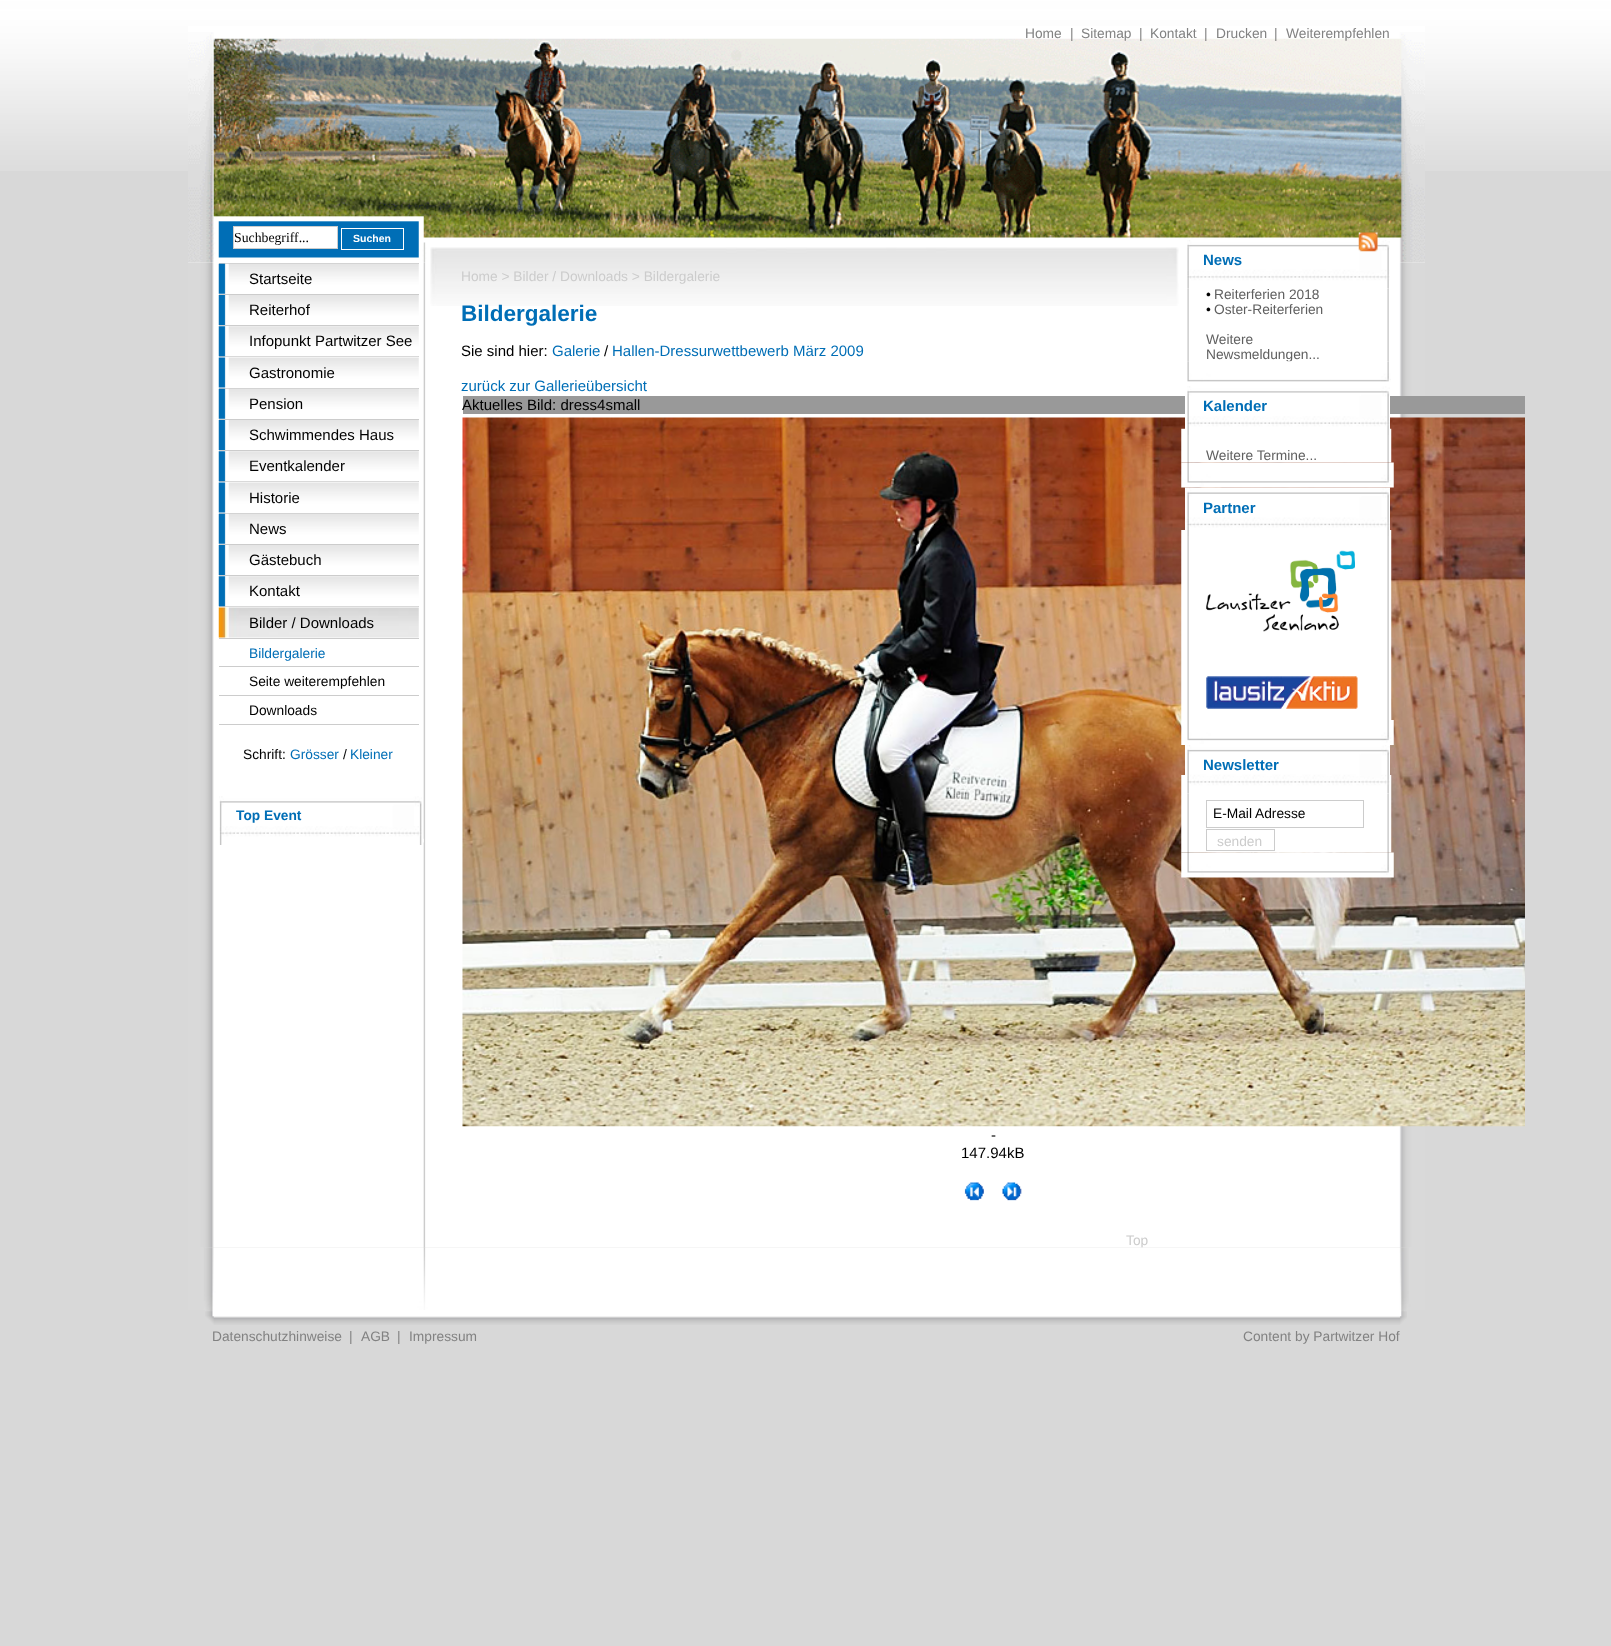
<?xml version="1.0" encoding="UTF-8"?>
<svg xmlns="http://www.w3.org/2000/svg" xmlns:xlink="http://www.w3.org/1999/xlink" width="1611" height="1646">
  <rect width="100%" height="100%" fill="#d8d8d8" />
  <image x="0" y="0" width="1611" height="171" xlink:href="image1.png" />
  <rect x="188" y="26" width="1237" height="237" fill="#ffffff" />
  <image x="188" y="32" width="1237" height="231" xlink:href="image2.png" />
  <rect x="233.5" y="226.5" width="104" height="22" fill="#ffffff" stroke="#cccccc" />
  <rect x="341.5" y="228.5" width="62" height="21" fill="none" stroke="#ffffff" />
  <image x="188" y="262" width="1237" height="986" xlink:href="image3.png" />
  <rect x="219" y="263" width="200" height="1" fill="#cccccc" />
  <rect x="219" y="294" width="200" height="1" fill="#cccccc" />
  <image x="218" y="263" width="201" height="31" xlink:href="image4.png" />
  <rect x="219" y="325" width="200" height="1" fill="#cccccc" />
  <image x="218" y="295" width="201" height="30" xlink:href="image5.png" />
  <rect x="219" y="356" width="200" height="1" fill="#cccccc" />
  <image x="218" y="326" width="201" height="31" xlink:href="image6.png" />
  <rect x="219" y="388" width="200" height="1" fill="#cccccc" />
  <image x="218" y="357" width="201" height="31" xlink:href="image7.png" />
  <rect x="219" y="419" width="200" height="1" fill="#cccccc" />
  <image x="218" y="388" width="201" height="31" xlink:href="image4.png" />
  <rect x="219" y="450" width="200" height="1" fill="#cccccc" />
  <image x="218" y="420" width="201" height="30" xlink:href="image5.png" />
  <rect x="219" y="481" width="200" height="1" fill="#cccccc" />
  <image x="218" y="451" width="201" height="31" xlink:href="image6.png" />
  <rect x="219" y="513" width="200" height="1" fill="#cccccc" />
  <image x="218" y="482" width="201" height="31" xlink:href="image7.png" />
  <rect x="219" y="544" width="200" height="1" fill="#cccccc" />
  <image x="218" y="513" width="201" height="31" xlink:href="image4.png" />
  <rect x="219" y="575" width="200" height="1" fill="#cccccc" />
  <image x="218" y="545" width="201" height="30" xlink:href="image5.png" />
  <rect x="219" y="606" width="200" height="1" fill="#cccccc" />
  <image x="218" y="576" width="201" height="31" xlink:href="image8.png" />
  <rect x="219" y="638" width="200" height="1" fill="#cccccc" />
  <image x="218" y="607" width="201" height="31" xlink:href="image9.png" />
  <rect x="219" y="666" width="200" height="1" fill="#cccccc" />
  <rect x="219" y="695" width="200" height="1" fill="#cccccc" />
  <rect x="219" y="724" width="200" height="1" fill="#cccccc" />
  <image x="219" y="796" width="203" height="49" xlink:href="image10.png" />
  <image x="423" y="838" width="1" height="5" xlink:href="image11.png" />
  <image x="430" y="247" width="749" height="59" xlink:href="image12.png" />
  <rect x="463" y="396" width="1062" height="18" fill="#999999" />
  <image x="462" y="417" width="1063" height="710" xlink:href="image13.png" />
  <image x="964" y="1182" width="20" height="19" xlink:href="image14.png" />
  <image x="1002" y="1182" width="20" height="19" xlink:href="image15.png" />
  <image x="1187" y="240" width="203" height="49" xlink:href="image16.png" />
  <image x="1358" y="232" width="20" height="20" xlink:href="image17.png" />
  <image x="1187" y="289" width="202" height="73" xlink:href="image18.png" />
  <image x="1181" y="428" width="211" height="35" xlink:href="image21.png" />
  <rect x="1185" y="396" width="205" height="39" fill="#ffffff" />
  <image x="1187" y="386" width="203" height="49" xlink:href="image20.png" />
  <image x="1181" y="462" width="213" height="26" xlink:href="image22.png" />
  <image x="1181" y="530" width="211" height="190" xlink:href="image24.png" />
  <image x="1185" y="487" width="205" height="49" xlink:href="image23.png" />
  <image x="1206" y="550" width="149" height="82" xlink:href="image25.png" />
  <image x="1206" y="676" width="152" height="33" xlink:href="image26.png" />
  <image x="1181" y="720" width="213" height="25" xlink:href="image27.png" />
  <image x="1181" y="775" width="211" height="78" xlink:href="image28.png" />
  <rect x="1185" y="745" width="205" height="49" fill="#ffffff" />
  <image x="1187" y="745" width="203" height="49" xlink:href="image16.png" />
  <rect x="1206.5" y="800.5" width="157" height="27" fill="none" stroke="#cccccc" />
  <rect x="1206.5" y="829.5" width="68" height="21" fill="none" stroke="#cccccc" />
  <image x="1181" y="852" width="213" height="26" xlink:href="image29.png" />
  <image x="205" y="1310" width="1202" height="15" xlink:href="image31.png" />
  <text x="1025" y="38" style="font-family: Liberation Sans; font-size: 13.75px; fill: #828282">Home</text>
  <text x="1070" y="38" style="font-family: Liberation Sans; font-size: 13.75px; fill: #828282">|</text>
  <text x="1081" y="38" style="font-family: Liberation Sans; font-size: 13.75px; fill: #828282">Sitemap</text>
  <text x="1139" y="38" style="font-family: Liberation Sans; font-size: 13.75px; fill: #828282">|</text>
  <text x="1150" y="38" style="font-family: Liberation Sans; font-size: 13.75px; fill: #828282">Kontakt</text>
  <text x="1204" y="38" style="font-family: Liberation Sans; font-size: 13.75px; fill: #828282">|</text>
  <text x="1216" y="38" style="font-family: Liberation Sans; font-size: 13.75px; fill: #828282">Drucken</text>
  <text x="1274" y="38" style="font-family: Liberation Sans; font-size: 13.75px; fill: #828282">|</text>
  <text x="1286" y="38" style="font-family: Liberation Sans; font-size: 13.75px; fill: #828282">Weiterempfehlen</text>
  <text x="234" y="242" style="font-family: Liberation Serif; font-size: 13.75px; fill: #000000">Suchbegriff...</text>
  <text x="353" y="242" style="font-family: Liberation Sans; font-size: 10.5px; font-weight: bold; fill: #ffffff">Suchen</text>
  <text x="249" y="284" style="font-family: Liberation Sans; font-size: 15px; fill: #000000">Startseite</text>
  <text x="249" y="315" style="font-family: Liberation Sans; font-size: 15px; fill: #000000">Reiterhof</text>
  <text x="249" y="346" style="font-family: Liberation Sans; font-size: 15px; fill: #000000">Infopunkt Partwitzer See</text>
  <text x="249" y="378" style="font-family: Liberation Sans; font-size: 15px; fill: #000000">Gastronomie</text>
  <text x="249" y="409" style="font-family: Liberation Sans; font-size: 15px; fill: #000000">Pension</text>
  <text x="249" y="440" style="font-family: Liberation Sans; font-size: 15px; fill: #000000">Schwimmendes Haus</text>
  <text x="249" y="471" style="font-family: Liberation Sans; font-size: 15px; fill: #000000">Eventkalender</text>
  <text x="249" y="503" style="font-family: Liberation Sans; font-size: 15px; fill: #000000">Historie</text>
  <text x="249" y="534" style="font-family: Liberation Sans; font-size: 15px; fill: #000000">News</text>
  <text x="249" y="565" style="font-family: Liberation Sans; font-size: 15px; fill: #000000">Gästebuch</text>
  <text x="249" y="596" style="font-family: Liberation Sans; font-size: 15px; fill: #000000">Kontakt</text>
  <text x="249" y="628" style="font-family: Liberation Sans; font-size: 15px; fill: #000000">Bilder / Downloads</text>
  <text x="249" y="658" style="font-family: Liberation Sans; font-size: 13.75px; fill: #006eb6">Bildergalerie</text>
  <text x="249" y="686" style="font-family: Liberation Sans; font-size: 13.75px; fill: #000000">Seite weiterempfehlen</text>
  <text x="249" y="715" style="font-family: Liberation Sans; font-size: 13.75px; fill: #000000">Downloads</text>
  <text x="243" y="759" style="font-family: Liberation Sans; font-size: 13.75px; fill: #000000">Schrift:</text>
  <text x="290" y="759" style="font-family: Liberation Sans; font-size: 13.75px; fill: #006eb6">Grösser</text>
  <text x="343" y="759" style="font-family: Liberation Sans; font-size: 13.75px; fill: #000000">/</text>
  <text x="350" y="759" style="font-family: Liberation Sans; font-size: 13.75px; fill: #006eb6">Kleiner</text>
  <text x="236" y="820" style="font-family: Liberation Sans; font-size: 13.75px; font-weight: bold; fill: #006eb6">Top Event</text>
  <text x="461" y="281" style="font-family: Liberation Sans; font-size: 13.75px; fill: #cccccc">Home &gt; Bilder / Downloads &gt; Bildergalerie</text>
  <text x="461" y="321" style="font-family: Liberation Sans; font-size: 22.5px; font-weight: bold; fill: #006eb6">Bildergalerie</text>
  <text x="461" y="356" style="font-family: Liberation Sans; font-size: 15px; fill: #000000">Sie sind hier:</text>
  <text x="552" y="356" style="font-family: Liberation Sans; font-size: 15px; fill: #006eb6">Galerie</text>
  <text x="604" y="356" style="font-family: Liberation Sans; font-size: 15px; fill: #000000">/</text>
  <text x="612" y="356" style="font-family: Liberation Sans; font-size: 15px; fill: #006eb6">Hallen-Dressurwettbewerb März 2009</text>
  <text x="461" y="391" style="font-family: Liberation Sans; font-size: 15px; fill: #006eb6">zurück zur Gallerieübersicht</text>
  <text x="462" y="410" style="font-family: Liberation Sans; font-size: 15px; fill: #000000">Aktuelles Bild: dress4small</text>
  <text x="991" y="1140" style="font-family: Liberation Sans; font-size: 15px; fill: #000000">-</text>
  <text x="961" y="1158" style="font-family: Liberation Sans; font-size: 15px; fill: #000000">147.94kB</text>
  <text x="1126" y="1245" style="font-family: Liberation Sans; font-size: 13.75px; fill: #cccccc">Top</text>
  <text x="1203" y="265" style="font-family: Liberation Sans; font-size: 15px; font-weight: bold; fill: #006eb6">News</text>
  <text x="1206" y="299" style="font-family: Liberation Sans; font-size: 13.75px; fill: #000000">•</text>
  <text x="1214" y="299" style="font-family: Liberation Sans; font-size: 13.75px; fill: #5f5f5f">Reiterferien 2018</text>
  <text x="1206" y="314" style="font-family: Liberation Sans; font-size: 13.75px; fill: #000000">•</text>
  <text x="1214" y="314" style="font-family: Liberation Sans; font-size: 13.75px; fill: #5f5f5f">Oster-Reiterferien</text>
  <text x="1206" y="344" style="font-family: Liberation Sans; font-size: 13.75px; fill: #5f5f5f">Weitere</text>
  <text x="1206" y="359" style="font-family: Liberation Sans; font-size: 13.75px; fill: #5f5f5f">Newsmeldungen...</text>
  <image x="1187" y="361" width="204" height="21" xlink:href="image19.png" />
  <text x="1203" y="411" style="font-family: Liberation Sans; font-size: 15px; font-weight: bold; fill: #006eb6">Kalender</text>
  <text x="1206" y="460" style="font-family: Liberation Sans; font-size: 13.75px; fill: #5f5f5f">Weitere Termine...</text>
  <text x="1203" y="513" style="font-family: Liberation Sans; font-size: 15px; font-weight: bold; fill: #006eb6">Partner</text>
  <text x="1203" y="770" style="font-family: Liberation Sans; font-size: 15px; font-weight: bold; fill: #006eb6">Newsletter</text>
  <text x="1213" y="818" style="font-family: Liberation Sans; font-size: 13.75px; fill: #000000">E-Mail Adresse</text>
  <text x="1217" y="846" style="font-family: Liberation Sans; font-size: 13.75px; fill: #cccccc">senden</text>
  <image x="188" y="1247" width="1237" height="63" xlink:href="image30.png" />
  <text x="212" y="1341" style="font-family: Liberation Sans; font-size: 13.75px; fill: #828282">Datenschutzhinweise</text>
  <text x="349" y="1341" style="font-family: Liberation Sans; font-size: 13.75px; fill: #828282">|</text>
  <text x="361" y="1341" style="font-family: Liberation Sans; font-size: 13.75px; fill: #828282">AGB</text>
  <text x="397" y="1341" style="font-family: Liberation Sans; font-size: 13.75px; fill: #828282">|</text>
  <text x="409" y="1341" style="font-family: Liberation Sans; font-size: 13.75px; fill: #828282">Impressum</text>
  <text x="1243" y="1341" style="font-family: Liberation Sans; font-size: 13.75px; fill: #828282">Content by Partwitzer Hof</text>
</svg>
